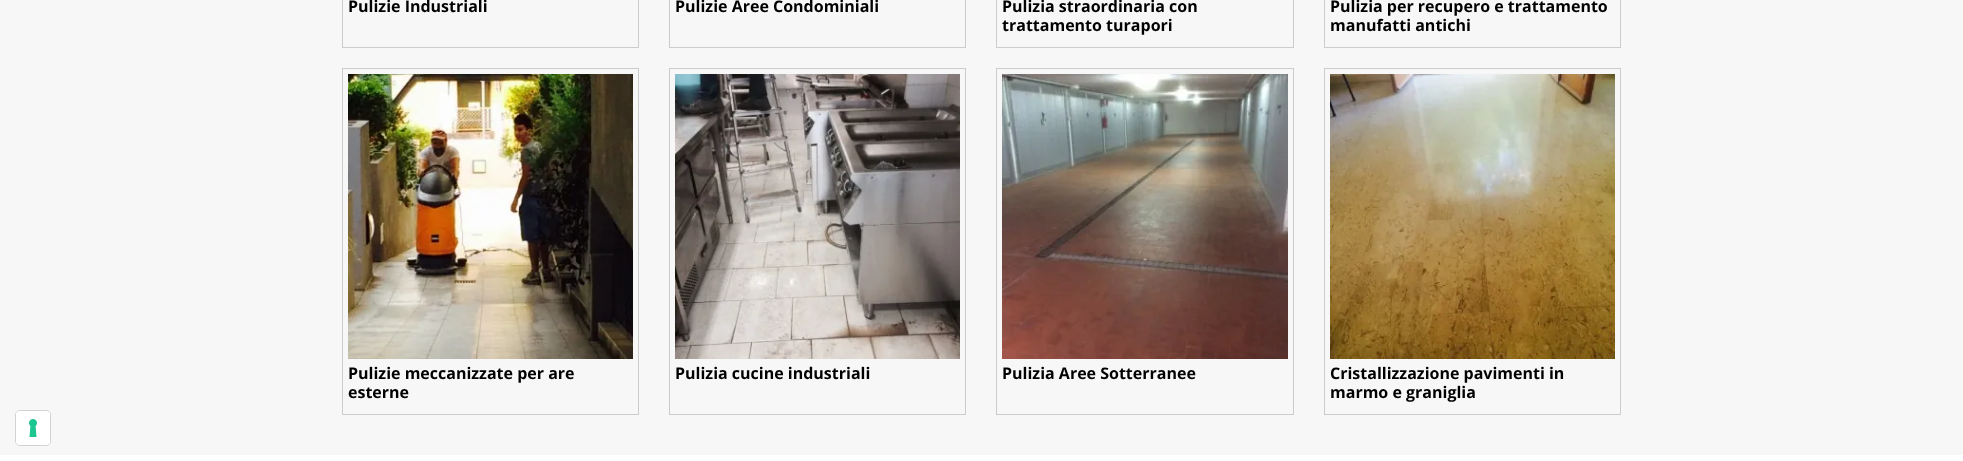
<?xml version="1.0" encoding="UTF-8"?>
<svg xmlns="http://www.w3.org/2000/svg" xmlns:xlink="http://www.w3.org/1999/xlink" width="1963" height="461">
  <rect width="100%" height="100%" fill="#ffffff" />
  <rect width="1963" height="455" fill="#f7f7f7" />
  <rect x="342.5" y="-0.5" width="296" height="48" fill="none" stroke="#cccccc" />
  <rect x="669.5" y="-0.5" width="296" height="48" fill="none" stroke="#cccccc" />
  <rect x="996.5" y="-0.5" width="297" height="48" fill="none" stroke="#cccccc" />
  <rect x="1324.5" y="-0.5" width="296" height="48" fill="none" stroke="#cccccc" />
  <rect x="342.5" y="68.5" width="296" height="346" fill="none" stroke="#cccccc" />
  <image x="348" y="74" width="285" height="285" xlink:href="image1.png" />
  <rect x="669.5" y="68.5" width="296" height="346" fill="none" stroke="#cccccc" />
  <image x="675" y="74" width="285" height="285" xlink:href="image2.png" />
  <rect x="996.5" y="68.5" width="297" height="346" fill="none" stroke="#cccccc" />
  <image x="1002" y="74" width="286" height="285" xlink:href="image3.png" />
  <rect x="1324.5" y="68.5" width="296" height="346" fill="none" stroke="#cccccc" />
  <image x="1330" y="74" width="285" height="285" xlink:href="image4.png" />
  <rect x="15.5" y="410.5" width="35" height="35" rx="4.5" fill="none" stroke="#d2d2d2" />
  <rect x="16" y="411" width="34" height="34" rx="4" fill="#ffffff" />
  <image x="29" y="419" width="8" height="18" xlink:href="image5.png" />
  <text x="348" y="12" style="font-family: Open Sans; font-size: 16px; font-weight: bold; fill: #000000">Pulizie Industriali</text>
  <text x="675" y="12" style="font-family: Open Sans; font-size: 16px; font-weight: bold; fill: #000000">Pulizie Aree Condominiali</text>
  <text x="1002" y="12" style="font-family: Open Sans; font-size: 16px; font-weight: bold; fill: #000000">Pulizia straordinaria con</text>
  <text x="1002" y="31" style="font-family: Open Sans; font-size: 16px; font-weight: bold; fill: #000000">trattamento turapori</text>
  <text x="1330" y="12" style="font-family: Open Sans; font-size: 16px; font-weight: bold; fill: #000000">Pulizia per recupero e trattamento</text>
  <text x="1330" y="31" style="font-family: Open Sans; font-size: 16px; font-weight: bold; fill: #000000">manufatti antichi</text>
  <text x="348" y="379" style="font-family: Open Sans; font-size: 16px; font-weight: bold; fill: #000000">Pulizie meccanizzate per are</text>
  <text x="348" y="398" style="font-family: Open Sans; font-size: 16px; font-weight: bold; fill: #000000">esterne</text>
  <text x="675" y="379" style="font-family: Open Sans; font-size: 16px; font-weight: bold; fill: #000000">Pulizia cucine industriali</text>
  <text x="1002" y="379" style="font-family: Open Sans; font-size: 16px; font-weight: bold; fill: #000000">Pulizia Aree Sotterranee</text>
  <text x="1330" y="379" style="font-family: Open Sans; font-size: 16px; font-weight: bold; fill: #000000">Cristallizzazione pavimenti in</text>
  <text x="1330" y="398" style="font-family: Open Sans; font-size: 16px; font-weight: bold; fill: #000000">marmo e graniglia</text>
</svg>
